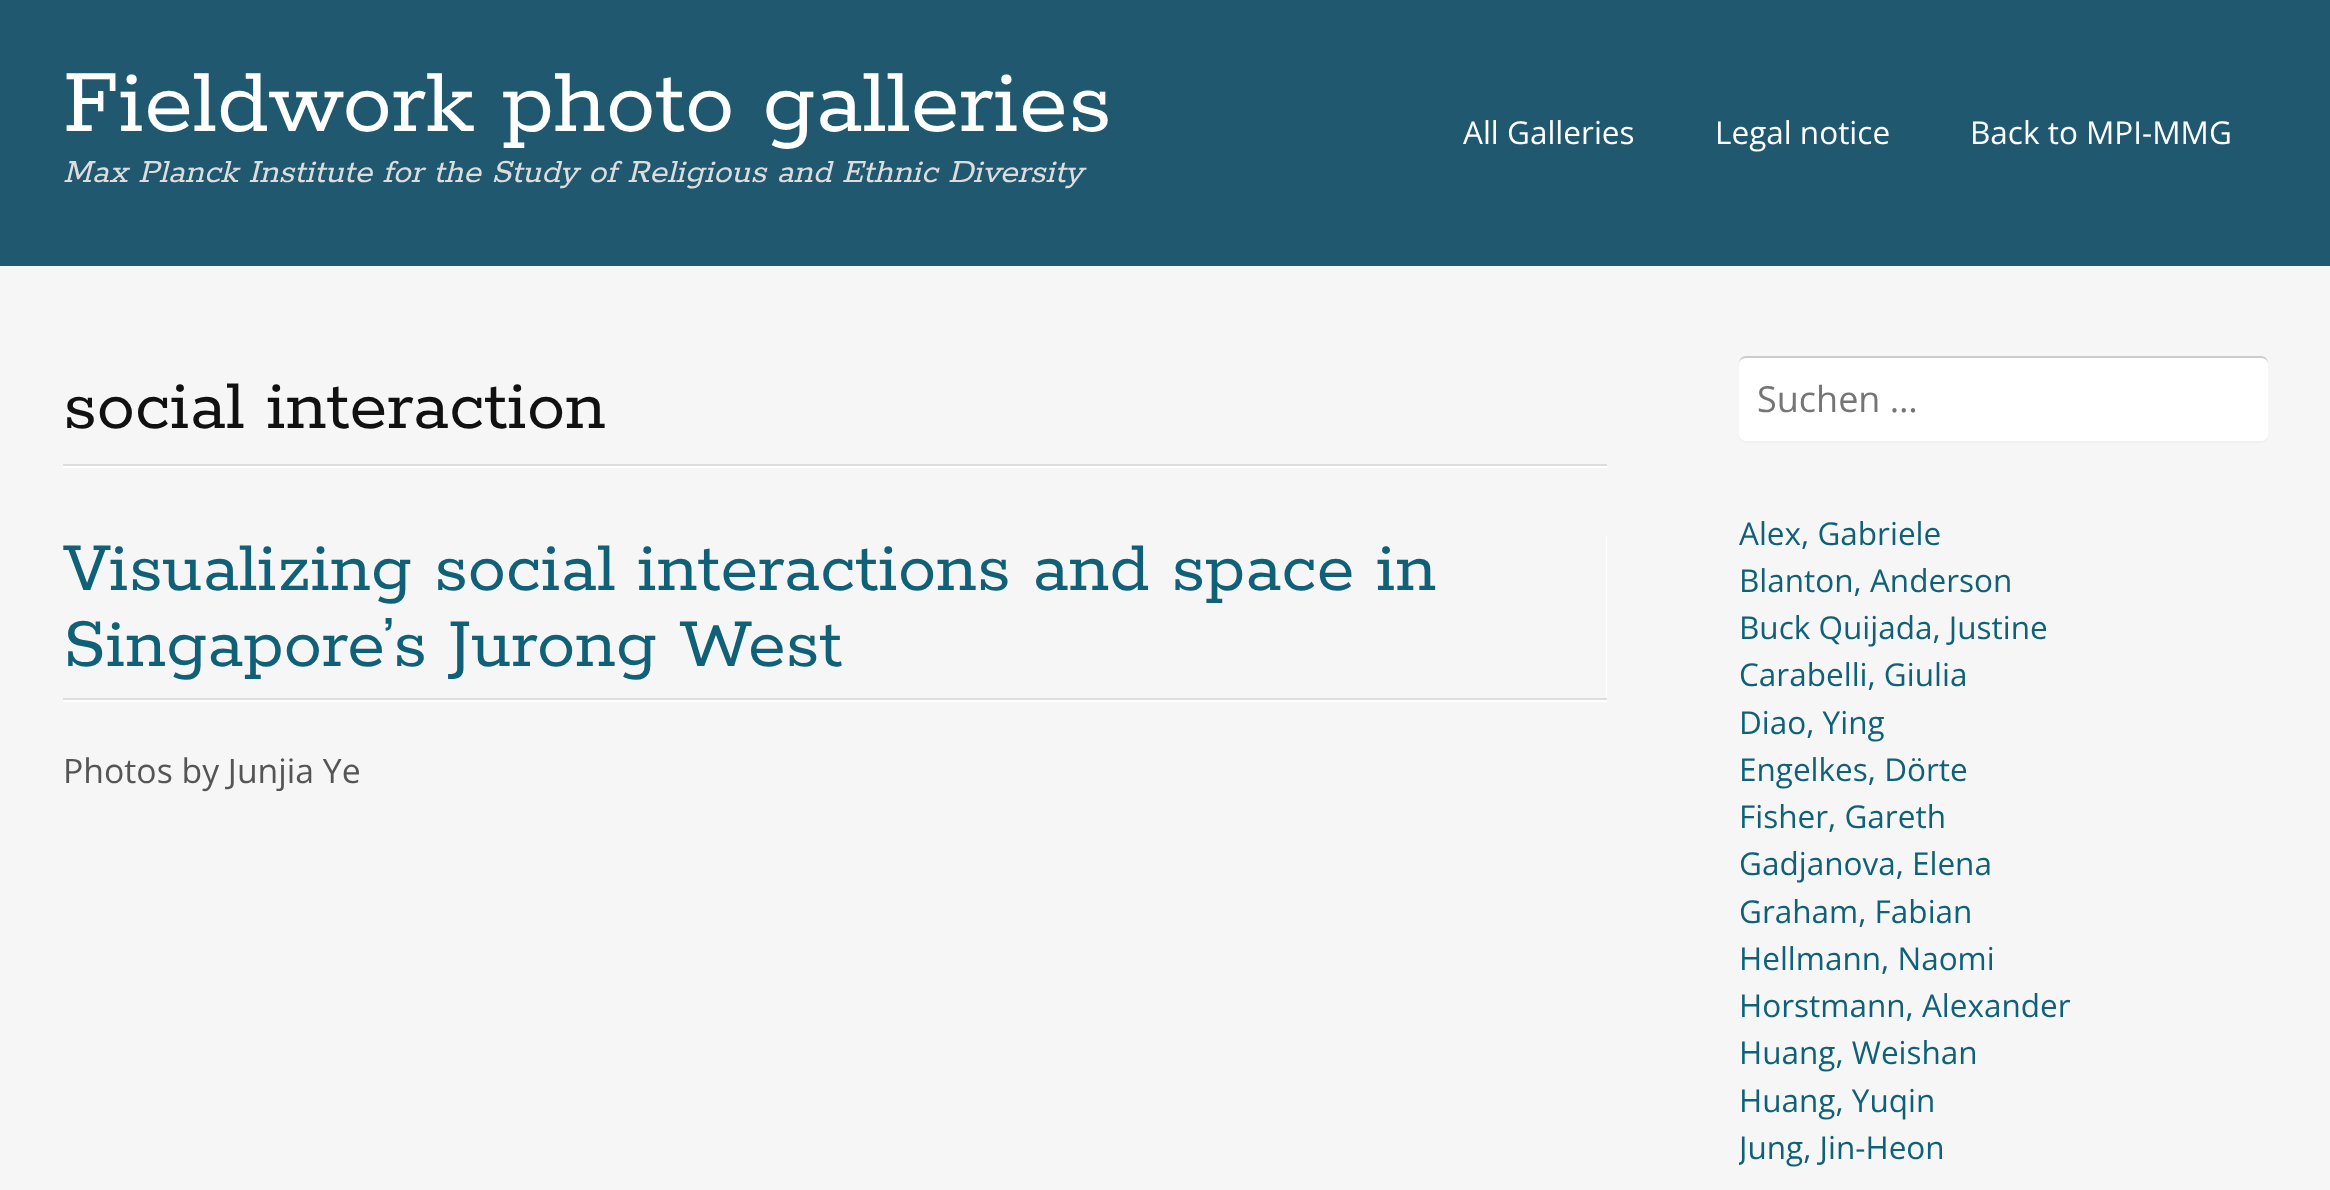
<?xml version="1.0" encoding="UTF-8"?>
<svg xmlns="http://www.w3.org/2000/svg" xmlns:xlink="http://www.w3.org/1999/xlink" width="2330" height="1190">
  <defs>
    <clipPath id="clip1"><rect x="1739" y="356" width="529" height="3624" /></clipPath>
  </defs>
  <rect width="100%" height="100%" fill="#f6f6f6" />
  <rect width="2330" height="266" fill="#205870" />
  <rect x="63" y="466" width="1544" height="2" fill="#ffffff" />
  <rect x="63" y="464" width="1544" height="2" fill="#dddddd" />
  <path d="M 63 700 v 2 h 1544 v -166 h -1 v 164 z" fill="#ffffff" />
  <rect x="63" y="698" width="1544" height="2" fill="#dddddd" />
  <path d="M 1739 363 v 73 c 0 4 3 7 7 7 h 515 c 4 0 7 -3 7 -7 v -2 c 0 4 -3 7 -7 7 h -515 c -4 0 -7 -3 -7 -7 z" fill="#f0f0f0" />
  <rect x="1739" y="356" width="529" height="85" rx="7" fill="#ffffff" />
  <path d="M 1746 358 h 515 c 4 0 7 3 7 6 c 0 -4 -2 -8 -7 -8 h -515 c -5 0 -7 4 -7 8 c 0 -3 3 -6 7 -6 z" fill="#000000" fill-opacity="0.2" />
  <text x="63" y="131" style="font-family: Rokkitt; font-size: 99px; fill: #ffffff">Fieldwork photo galleries</text>
  <text x="63" y="182" style="font-family: Rokkitt; font-size: 36px; font-style: italic; fill: #dddddd">Max Planck Institute for the Study of Religious and Ethnic Diversity</text>
  <text x="1463" y="144" style="font-family: Open Sans; font-size: 31.5px; fill: #ffffff">All Galleries</text>
  <text x="1715" y="144" style="font-family: Open Sans; font-size: 31.5px; fill: #ffffff">Legal notice</text>
  <text x="1970" y="144" style="font-family: Open Sans; font-size: 31.5px; fill: #ffffff">Back to MPI-MMG</text>
  <text x="63" y="428" style="font-family: Rokkitt; font-size: 76.5px; fill: #111111">social interaction</text>
  <text x="63" y="590" style="font-family: Rokkitt; font-size: 76.5px; fill: #106177">Visualizing social interactions and space in</text>
  <text x="63" y="666" style="font-family: Rokkitt; font-size: 76.5px; fill: #106177">Singapore’s Jurong West</text>
  <text x="63" y="783" style="font-family: Open Sans; font-size: 33.75px; fill: #555555">Photos by Junjia Ye</text>
  <text x="1757" y="412" style="font-family: Open Sans; font-size: 36px; fill: #757575">Suchen …</text>
  <text x="1739" y="545" style="font-family: Open Sans; font-size: 31.5px; fill: #106177">Alex, Gabriele</text>
  <text x="1739" y="592" style="font-family: Open Sans; font-size: 31.5px; fill: #106177">Blanton, Anderson</text>
  <text x="1739" y="639" style="font-family: Open Sans; font-size: 31.5px; fill: #106177">Buck Quijada, Justine</text>
  <text x="1739" y="686" style="font-family: Open Sans; font-size: 31.5px; fill: #106177">Carabelli, Giulia</text>
  <text x="1739" y="734" style="font-family: Open Sans; font-size: 31.5px; fill: #106177">Diao, Ying</text>
  <text x="1739" y="781" style="font-family: Open Sans; font-size: 31.5px; fill: #106177">Engelkes, Dörte</text>
  <text x="1739" y="828" style="font-family: Open Sans; font-size: 31.5px; fill: #106177">Fisher, Gareth</text>
  <text x="1739" y="875" style="font-family: Open Sans; font-size: 31.5px; fill: #106177">Gadjanova, Elena</text>
  <text x="1739" y="923" style="font-family: Open Sans; font-size: 31.5px; fill: #106177">Graham, Fabian</text>
  <text x="1739" y="970" style="font-family: Open Sans; font-size: 31.5px; fill: #106177">Hellmann, Naomi</text>
  <text x="1739" y="1017" style="font-family: Open Sans; font-size: 31.5px; fill: #106177">Horstmann, Alexander</text>
  <text x="1739" y="1064" style="font-family: Open Sans; font-size: 31.5px; fill: #106177">Huang, Weishan</text>
  <text x="1739" y="1112" style="font-family: Open Sans; font-size: 31.5px; fill: #106177">Huang, Yuqin</text>
  <g clip-path="url(#clip1)">
    <text x="1739" y="1159" style="font-family: Open Sans; font-size: 31.5px; fill: #106177">Jung, Jin-Heon</text>
  </g>
</svg>
